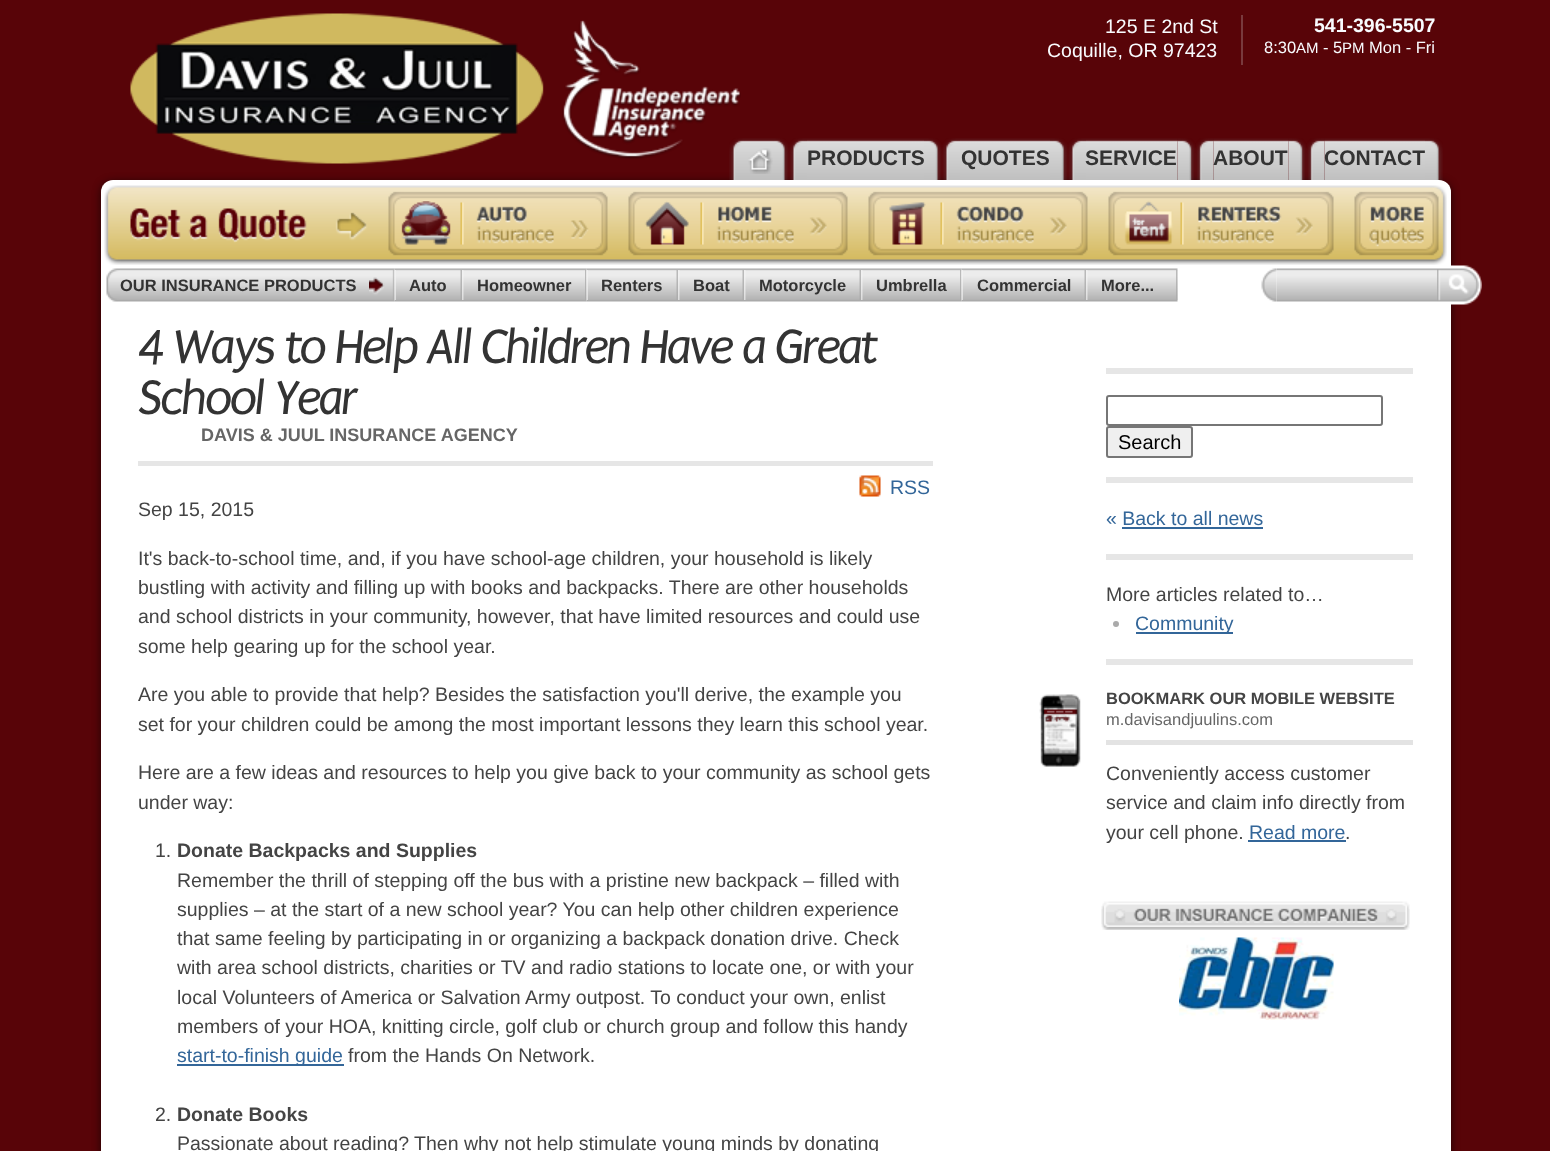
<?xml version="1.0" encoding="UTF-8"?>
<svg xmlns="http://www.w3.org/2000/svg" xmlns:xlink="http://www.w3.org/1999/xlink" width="1550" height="1151">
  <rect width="100%" height="100%" fill="#580408" />
  <rect x="1241" y="15" width="2" height="50" fill="#793a3d" />
  <rect x="101" y="182" width="1350" height="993" rx="12" fill="#000000" fill-opacity="0.65" filter="blur(4px)" />
  <image x="747" y="138" width="24" height="42" xlink:href="image1.png" />
  <image x="130" y="13" width="611" height="151" xlink:href="image34.png" />
  <image x="729" y="138" width="18" height="42" xlink:href="image2.png" />
  <image x="771" y="138" width="18" height="42" xlink:href="image4.png" />
  <image x="748" y="148" width="25" height="26" xlink:href="image3.png" />
  <image x="807" y="138" width="117" height="42" xlink:href="image5.png" />
  <image x="789" y="138" width="18" height="42" xlink:href="image6.png" />
  <image x="924" y="138" width="18" height="42" xlink:href="image4.png" />
  <image x="960" y="138" width="90" height="42" xlink:href="image7.png" />
  <image x="942" y="138" width="18" height="42" xlink:href="image6.png" />
  <image x="1050" y="138" width="18" height="42" xlink:href="image8.png" />
  <image x="1086" y="138" width="92" height="42" xlink:href="image9.png" />
  <image x="1068" y="138" width="18" height="42" xlink:href="image6.png" />
  <image x="1177" y="138" width="19" height="42" xlink:href="image10.png" />
  <image x="1213" y="138" width="76" height="42" xlink:href="image11.png" />
  <image x="1195" y="138" width="19" height="42" xlink:href="image12.png" />
  <image x="1288" y="138" width="19" height="42" xlink:href="image10.png" />
  <image x="1324" y="138" width="101" height="42" xlink:href="image13.png" />
  <image x="1306" y="138" width="19" height="42" xlink:href="image14.png" />
  <image x="1425" y="138" width="18" height="42" xlink:href="image15.png" />
  <rect x="101" y="180" width="1350" height="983" rx="12" fill="#ffffff" />
  <image x="120" y="268" width="275" height="34" xlink:href="image16.png" />
  <image x="106" y="268" width="14" height="34" xlink:href="image17.png" />
  <image x="369" y="270" width="26" height="30" xlink:href="image18.png" />
  <image x="394" y="268" width="68" height="34" xlink:href="image19.png" />
  <image x="394" y="270" width="2" height="30" xlink:href="image20.png" />
  <image x="460" y="270" width="2" height="30" xlink:href="image21.png" />
  <image x="462" y="268" width="125" height="34" xlink:href="image22.png" />
  <image x="462" y="270" width="2" height="30" xlink:href="image23.png" />
  <image x="585" y="270" width="2" height="30" xlink:href="image24.png" />
  <image x="586" y="268" width="92" height="34" xlink:href="image25.png" />
  <image x="586" y="270" width="2" height="30" xlink:href="image20.png" />
  <image x="676" y="270" width="2" height="30" xlink:href="image21.png" />
  <image x="678" y="268" width="66" height="34" xlink:href="image26.png" />
  <image x="678" y="270" width="2" height="30" xlink:href="image23.png" />
  <image x="742" y="270" width="2" height="30" xlink:href="image21.png" />
  <image x="744" y="268" width="117" height="34" xlink:href="image27.png" />
  <image x="744" y="270" width="2" height="30" xlink:href="image23.png" />
  <image x="859" y="270" width="2" height="30" xlink:href="image21.png" />
  <image x="861" y="268" width="101" height="34" xlink:href="image28.png" />
  <image x="861" y="270" width="2" height="30" xlink:href="image23.png" />
  <image x="960" y="270" width="2" height="30" xlink:href="image24.png" />
  <image x="961" y="268" width="125" height="34" xlink:href="image29.png" />
  <image x="961" y="270" width="2" height="30" xlink:href="image20.png" />
  <image x="1084" y="270" width="2" height="30" xlink:href="image21.png" />
  <image x="1086" y="268" width="92" height="34" xlink:href="image30.png" />
  <image x="1086" y="270" width="2" height="30" xlink:href="image23.png" />
  <image x="1176" y="270" width="2" height="30" xlink:href="image24.png" />
  <image x="1276" y="268" width="161" height="34" xlink:href="image31.png" />
  <image x="1261" y="268" width="16" height="34" xlink:href="image32.png" />
  <image x="1437" y="265" width="45" height="40" xlink:href="image33.png" />
  <rect x="401" y="201" width="768" height="44" fill="#580408" />
  <image x="104" y="185" width="1343" height="80" xlink:href="image35.png" />
  <rect x="138" y="461" width="795" height="5" fill="#e6e6e6" />
  <image x="859" y="475" width="22" height="22" xlink:href="image36.png" />
  <rect x="177" y="1064" width="167" height="2" fill="#336699" />
  <rect x="1106" y="368" width="307" height="6" fill="#e6e6e6" />
  <rect x="1107" y="396" width="275" height="29" rx="2" fill="none" stroke="#767676" stroke-width="2" />
  <rect x="1107" y="427" width="85" height="30" rx="2" fill="#efefef" stroke="#767676" stroke-width="2" />
  <rect x="1106" y="477" width="307" height="6" fill="#e6e6e6" />
  <rect x="1122" y="527" width="141" height="2" fill="#336699" />
  <rect x="1106" y="554" width="307" height="6" fill="#e6e6e6" />
  <circle cx="1116" cy="624" r="3" fill="#aaaaaa" />
  <rect x="1136" y="632" width="97" height="2" fill="#336699" />
  <rect x="1106" y="659" width="307" height="6" fill="#e6e6e6" />
  <rect x="1043" y="709" width="35" height="13" fill="#580408" />
  <image x="1039" y="694" width="42" height="74" xlink:href="image37.png" />
  <rect x="1106" y="740" width="307" height="5" fill="#e3e3e3" />
  <rect x="1248" y="840" width="98" height="2" fill="#336699" />
  <image x="1101" y="901" width="309" height="29" xlink:href="image38.png" />
  <image x="1179" y="937" width="155" height="83" xlink:href="image39.png" />
  <text x="1105" y="33" style="font-family: Liberation Sans; font-size: 19.5px; fill: #f9fbfe">125 E 2nd St</text>
  <text x="1047" y="57" style="font-family: Liberation Sans; font-size: 19.5px; fill: #f9fbfe">Coquille, OR 97423</text>
  <text x="1314" y="32" style="font-family: Liberation Sans; font-size: 19.5px; font-weight: bold; fill: #f9fbfe">541-396-5507</text>
  <text x="1264" y="53" style="font-family: Liberation Sans; font-size: 16.5px; fill: #f9fbfe">8:30</text>
  <text x="1296" y="53" style="font-family: Liberation Sans; font-size: 15px; fill: #f9fbfe">AM</text>
  <text x="1323" y="53" style="font-family: Liberation Sans; font-size: 16.5px; fill: #f9fbfe">- 5</text>
  <text x="1342" y="53" style="font-family: Liberation Sans; font-size: 15px; fill: #f9fbfe">PM</text>
  <text x="1369" y="53" style="font-family: Liberation Sans; font-size: 16.5px; fill: #f9fbfe">Mon - Fri</text>
  <text x="807" y="165" style="font-family: Liberation Sans; font-size: 21px; font-weight: bold; fill: #333333">PRODUCTS</text>
  <text x="961" y="165" style="font-family: Liberation Sans; font-size: 21px; font-weight: bold; fill: #333333">QUOTES</text>
  <text x="1085" y="165" style="font-family: Liberation Sans; font-size: 21px; font-weight: bold; fill: #333333">SERVICE</text>
  <text x="1213" y="165" style="font-family: Liberation Sans; font-size: 21px; font-weight: bold; fill: #333333">ABOUT</text>
  <text x="1324" y="165" style="font-family: Liberation Sans; font-size: 21px; font-weight: bold; fill: #333333">CONTACT</text>
  <text x="120" y="291" style="font-family: Liberation Sans; font-size: 16.5px; font-weight: bold; fill: #333333">OUR INSURANCE PRODUCTS</text>
  <text x="409" y="291" style="font-family: Liberation Sans; font-size: 16.5px; font-weight: bold; fill: #333333">Auto</text>
  <text x="477" y="291" style="font-family: Liberation Sans; font-size: 16.5px; font-weight: bold; fill: #333333">Homeowner</text>
  <text x="601" y="291" style="font-family: Liberation Sans; font-size: 16.5px; font-weight: bold; fill: #333333">Renters</text>
  <text x="693" y="291" style="font-family: Liberation Sans; font-size: 16.5px; font-weight: bold; fill: #333333">Boat</text>
  <text x="759" y="291" style="font-family: Liberation Sans; font-size: 16.5px; font-weight: bold; fill: #333333">Motorcycle</text>
  <text x="876" y="291" style="font-family: Liberation Sans; font-size: 16.5px; font-weight: bold; fill: #333333">Umbrella</text>
  <text x="977" y="291" style="font-family: Liberation Sans; font-size: 16.5px; font-weight: bold; fill: #333333">Commercial</text>
  <text x="1101" y="291" style="font-family: Liberation Sans; font-size: 16.5px; font-weight: bold; fill: #333333">More...</text>
  <text x="138" y="363" style="font-family: 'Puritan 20'; font-size: 51px; font-style: italic; letter-spacing: -3px; fill: #333333">4 Ways to Help All Children Have a Great</text>
  <text x="138" y="414" style="font-family: 'Puritan 20'; font-size: 51px; font-style: italic; letter-spacing: -3px; fill: #333333">School Year</text>
  <text x="201" y="441" style="font-family: Liberation Sans; font-size: 18px; font-weight: bold; fill: #666666">DAVIS &amp; JUUL INSURANCE AGENCY</text>
  <text x="890" y="494" style="font-family: Liberation Sans; font-size: 19.5px; fill: #336699">RSS</text>
  <text x="138" y="516" style="font-family: Liberation Sans; font-size: 19.5px; fill: #444444">Sep 15, 2015</text>
  <text x="138" y="565" style="font-family: Liberation Sans; font-size: 19.5px; fill: #444444">It's back-to-school time, and, if you have school-age children, your household is likely</text>
  <text x="138" y="594" style="font-family: Liberation Sans; font-size: 19.5px; fill: #444444">bustling with activity and filling up with books and backpacks. There are other households</text>
  <text x="138" y="623" style="font-family: Liberation Sans; font-size: 19.5px; fill: #444444">and school districts in your community, however, that have limited resources and could use</text>
  <text x="138" y="653" style="font-family: Liberation Sans; font-size: 19.5px; fill: #444444">some help gearing up for the school year.</text>
  <text x="138" y="701" style="font-family: Liberation Sans; font-size: 19.5px; fill: #444444">Are you able to provide that help? Besides the satisfaction you'll derive, the example you</text>
  <text x="138" y="731" style="font-family: Liberation Sans; font-size: 19.5px; fill: #444444">set for your children could be among the most important lessons they learn this school year.</text>
  <text x="138" y="779" style="font-family: Liberation Sans; font-size: 19.5px; fill: #444444">Here are a few ideas and resources to help you give back to your community as school gets</text>
  <text x="138" y="809" style="font-family: Liberation Sans; font-size: 19.5px; fill: #444444">under way:</text>
  <text x="155" y="857" style="font-family: Liberation Sans; font-size: 19.5px; fill: #444444">1.</text>
  <text x="177" y="857" style="font-family: Liberation Sans; font-size: 19.5px; font-weight: bold; fill: #444444">Donate Backpacks and Supplies</text>
  <text x="177" y="887" style="font-family: Liberation Sans; font-size: 19.5px; fill: #444444">Remember the thrill of stepping off the bus with a pristine new backpack – filled with</text>
  <text x="177" y="916" style="font-family: Liberation Sans; font-size: 19.5px; fill: #444444">supplies – at the start of a new school year? You can help other children experience</text>
  <text x="177" y="945" style="font-family: Liberation Sans; font-size: 19.5px; fill: #444444">that same feeling by participating in or organizing a backpack donation drive. Check</text>
  <text x="177" y="974" style="font-family: Liberation Sans; font-size: 19.5px; fill: #444444">with area school districts, charities or TV and radio stations to locate one, or with your</text>
  <text x="177" y="1004" style="font-family: Liberation Sans; font-size: 19.5px; fill: #444444">local Volunteers of America or Salvation Army outpost. To conduct your own, enlist</text>
  <text x="177" y="1033" style="font-family: Liberation Sans; font-size: 19.5px; fill: #444444">members of your HOA, knitting circle, golf club or church group and follow this handy</text>
  <text x="177" y="1062" style="font-family: Liberation Sans; font-size: 19.5px; fill: #336699">start-to-finish guide</text>
  <text x="348" y="1062" style="font-family: Liberation Sans; font-size: 19.5px; fill: #444444">from the Hands On Network.</text>
  <text x="155" y="1121" style="font-family: Liberation Sans; font-size: 19.5px; fill: #444444">2.</text>
  <text x="177" y="1121" style="font-family: Liberation Sans; font-size: 19.5px; font-weight: bold; fill: #444444">Donate Books</text>
  <text x="177" y="1150" style="font-family: Liberation Sans; font-size: 19.5px; fill: #444444">Passionate about reading? Then why not help stimulate young minds by donating</text>
  <text x="1118" y="449" style="font-family: Liberation Sans; font-size: 20px; fill: #000000">Search</text>
  <text x="1106" y="525" style="font-family: Liberation Sans; font-size: 19.5px; fill: #336699">« Back to all news</text>
  <text x="1106" y="601" style="font-family: Liberation Sans; font-size: 19.5px; fill: #444444">More articles related to…</text>
  <text x="1135" y="630" style="font-family: Liberation Sans; font-size: 19.5px; fill: #336699">Community</text>
  <text x="1106" y="704" style="font-family: Liberation Sans; font-size: 16.5px; font-weight: bold; fill: #444444">BOOKMARK OUR MOBILE WEBSITE</text>
  <text x="1106" y="725" style="font-family: Liberation Sans; font-size: 16.5px; fill: #666666">m.davisandjuulins.com</text>
  <text x="1106" y="780" style="font-family: Liberation Sans; font-size: 19.5px; fill: #444444">Conveniently access customer</text>
  <text x="1106" y="809" style="font-family: Liberation Sans; font-size: 19.5px; fill: #444444">service and claim info directly from</text>
  <text x="1106" y="839" style="font-family: Liberation Sans; font-size: 19.5px; fill: #444444">your cell phone.</text>
  <text x="1249" y="839" style="font-family: Liberation Sans; font-size: 19.5px; fill: #336699">Read more</text>
  <text x="1345" y="839" style="font-family: Liberation Sans; font-size: 19.5px; fill: #444444">.</text>
</svg>
